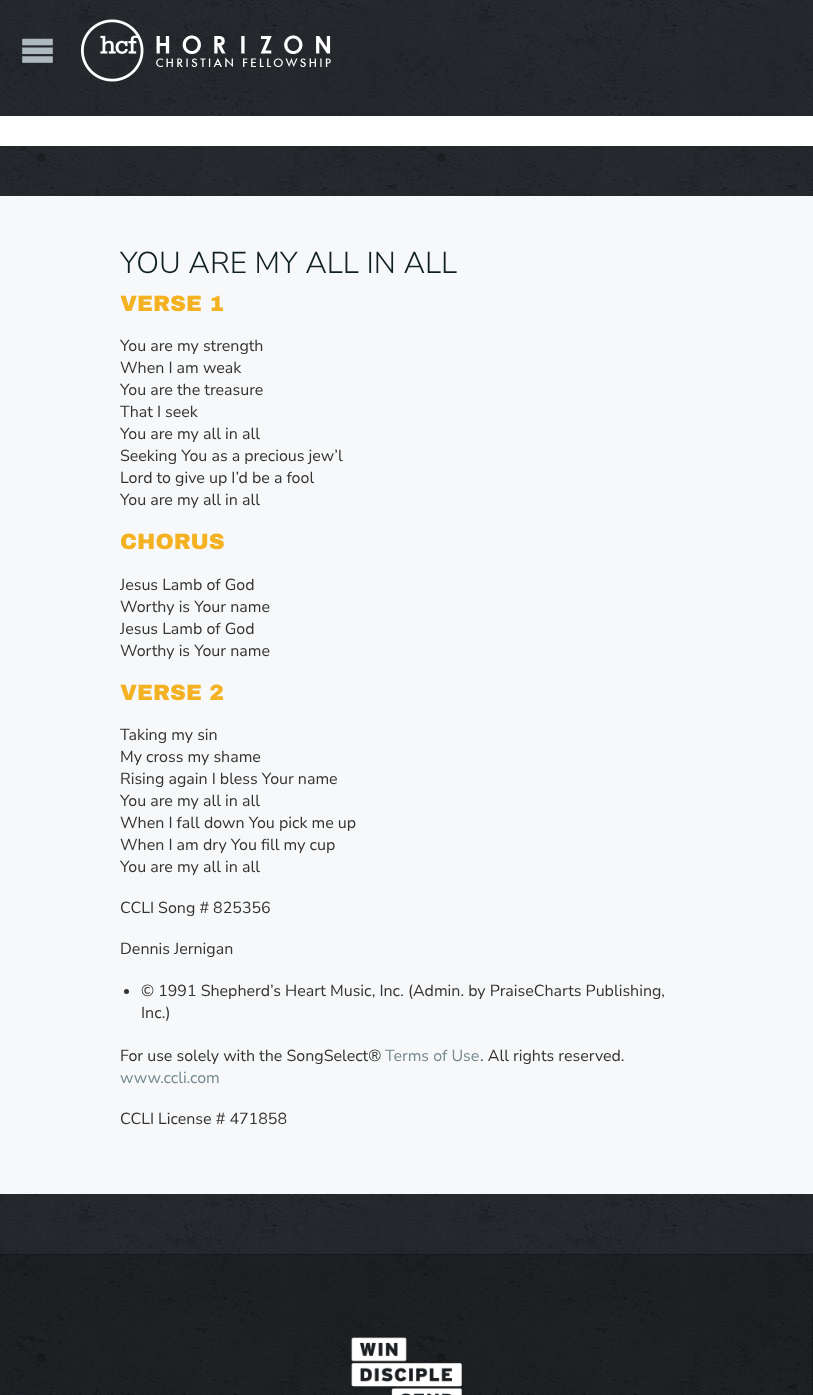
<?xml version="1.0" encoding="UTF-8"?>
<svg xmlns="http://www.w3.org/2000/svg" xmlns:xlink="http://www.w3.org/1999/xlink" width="813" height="1395">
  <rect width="100%" height="100%" fill="#ffffff" />
  <image x="0" y="0" width="813" height="1395" xlink:href="image1.png" />
  <image x="22" y="38" width="31" height="25" xlink:href="image2.png" />
  <image x="81" y="19" width="250" height="63" xlink:href="image3.png" />
  <rect y="116" width="813" height="30" fill="#ffffff" />
  <rect y="196" width="813" height="998" fill="#f7f8f9" />
  <circle cx="126.5" cy="991.5" r="2.5" fill="#333333" />
  <rect y="1254" width="813" height="141" fill="#000000" fill-opacity="0.2" />
  <rect y="1254" width="813" height="1" fill="#000000" fill-opacity="0.2" />
  <rect x="812" y="1315" width="1" height="80" fill="#000000" fill-opacity="0.2" />
  <image x="351" y="1337" width="111" height="58" xlink:href="image4.png" />
  <text x="120" y="273" style="font-family: Nunito Sans; font-size: 30px; font-weight: 300; fill: #102025">YOU ARE MY ALL IN ALL</text>
  <text x="120" y="311" style="font-family: Archivo Black; font-size: 22px; font-weight: 900; fill: #f4b223">VERSE 1</text>
  <text x="120" y="351" style="font-family: Nunito Sans; font-size: 16px; fill: #333333">You are my strength</text>
  <text x="120" y="373" style="font-family: Nunito Sans; font-size: 16px; fill: #333333">When I am weak</text>
  <text x="120" y="395" style="font-family: Nunito Sans; font-size: 16px; fill: #333333">You are the treasure</text>
  <text x="120" y="417" style="font-family: Nunito Sans; font-size: 16px; fill: #333333">That I seek</text>
  <text x="120" y="439" style="font-family: Nunito Sans; font-size: 16px; fill: #333333">You are my all in all</text>
  <text x="120" y="461" style="font-family: Nunito Sans; font-size: 16px; fill: #333333">Seeking You as a precious jew’l</text>
  <text x="120" y="483" style="font-family: Nunito Sans; font-size: 16px; fill: #333333">Lord to give up I’d be a fool</text>
  <text x="120" y="505" style="font-family: Nunito Sans; font-size: 16px; fill: #333333">You are my all in all</text>
  <text x="120" y="549" style="font-family: Archivo Black; font-size: 22px; font-weight: 900; fill: #f4b223">CHORUS</text>
  <text x="120" y="590" style="font-family: Nunito Sans; font-size: 16px; fill: #333333">Jesus Lamb of God</text>
  <text x="120" y="612" style="font-family: Nunito Sans; font-size: 16px; fill: #333333">Worthy is Your name</text>
  <text x="120" y="634" style="font-family: Nunito Sans; font-size: 16px; fill: #333333">Jesus Lamb of God</text>
  <text x="120" y="656" style="font-family: Nunito Sans; font-size: 16px; fill: #333333">Worthy is Your name</text>
  <text x="120" y="700" style="font-family: Archivo Black; font-size: 22px; font-weight: 900; fill: #f4b223">VERSE 2</text>
  <text x="120" y="740" style="font-family: Nunito Sans; font-size: 16px; fill: #333333">Taking my sin</text>
  <text x="120" y="762" style="font-family: Nunito Sans; font-size: 16px; fill: #333333">My cross my shame</text>
  <text x="120" y="784" style="font-family: Nunito Sans; font-size: 16px; fill: #333333">Rising again I bless Your name</text>
  <text x="120" y="806" style="font-family: Nunito Sans; font-size: 16px; fill: #333333">You are my all in all</text>
  <text x="120" y="828" style="font-family: Nunito Sans; font-size: 16px; fill: #333333">When I fall down You pick me up</text>
  <text x="120" y="850" style="font-family: Nunito Sans; font-size: 16px; fill: #333333">When I am dry You fill my cup</text>
  <text x="120" y="872" style="font-family: Nunito Sans; font-size: 16px; fill: #333333">You are my all in all</text>
  <text x="120" y="913" style="font-family: Nunito Sans; font-size: 16px; fill: #333333">CCLI Song # 825356</text>
  <text x="120" y="954" style="font-family: Nunito Sans; font-size: 16px; fill: #333333">Dennis Jernigan</text>
  <text x="141" y="996" style="font-family: Nunito Sans; font-size: 16px; fill: #333333">© 1991 Shepherd’s Heart Music, Inc. (Admin. by PraiseCharts Publishing,</text>
  <text x="141" y="1018" style="font-family: Nunito Sans; font-size: 16px; fill: #333333">Inc.)</text>
  <text x="120" y="1061" style="font-family: Nunito Sans; font-size: 16px; fill: #333333">For use solely with the SongSelect®</text>
  <text x="385" y="1061" style="font-family: Nunito Sans; font-size: 16px; fill: #758991">Terms of Use</text>
  <text x="480" y="1061" style="font-family: Nunito Sans; font-size: 16px; fill: #333333">. All rights reserved.</text>
  <text x="120" y="1083" style="font-family: Nunito Sans; font-size: 16px; fill: #758991">www.ccli.com</text>
  <text x="120" y="1124" style="font-family: Nunito Sans; font-size: 16px; fill: #333333">CCLI License # 471858</text>
</svg>
